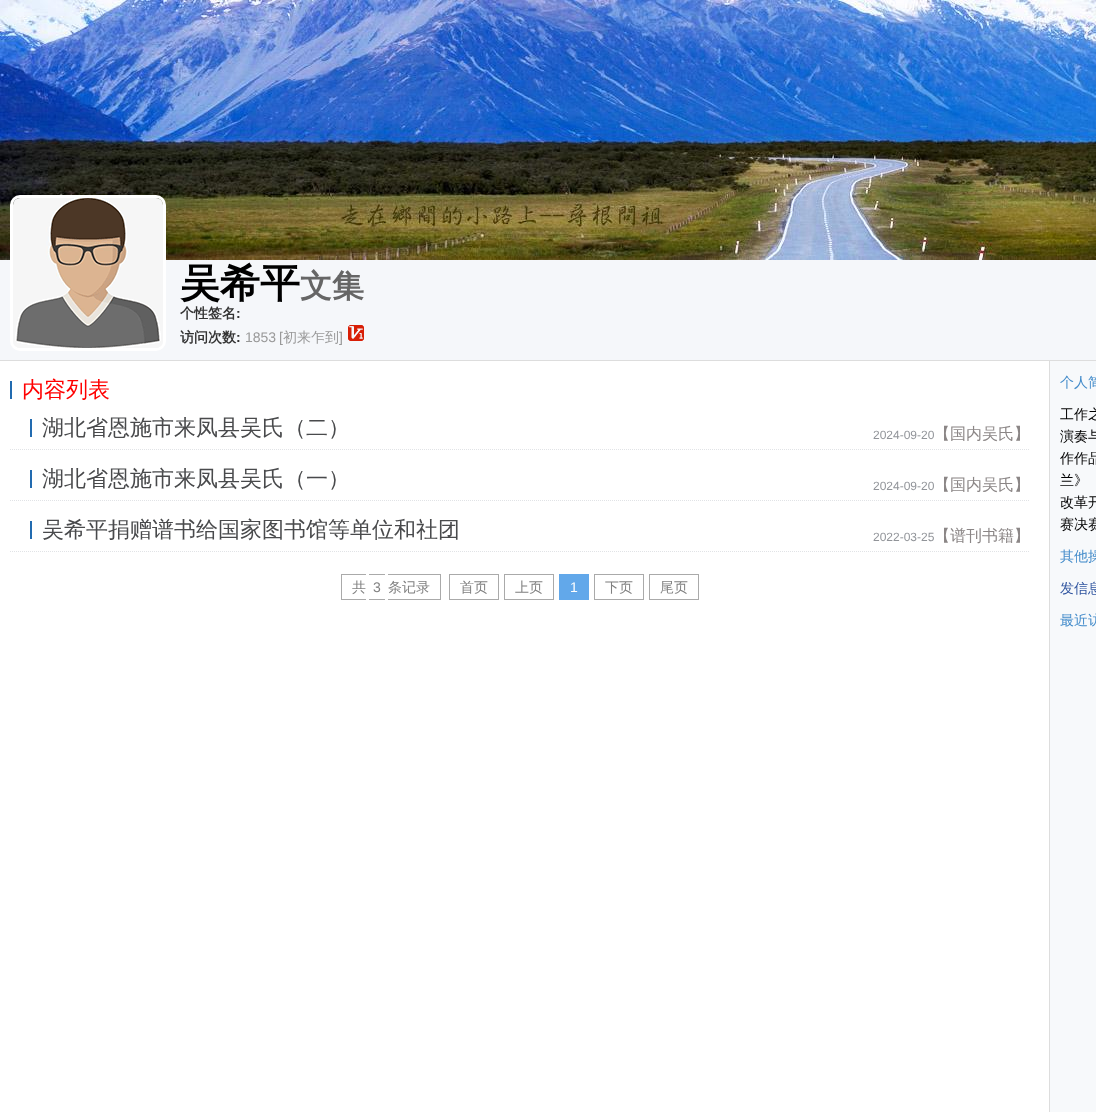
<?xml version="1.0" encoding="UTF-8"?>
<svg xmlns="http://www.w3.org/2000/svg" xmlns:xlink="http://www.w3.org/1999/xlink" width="1096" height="1112">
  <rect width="100%" height="100%" fill="#ffffff" />
  <image x="0" y="0" width="1096" height="260" xlink:href="image1.png" />
  <rect y="260" width="1096" height="100" fill="#f5f7fa" />
  <rect y="360" width="1096" height="1" fill="#dddddd" />
  <rect x="11.5" y="196.5" width="153" height="153" rx="8.5" fill="none" stroke="#ffffff" stroke-width="3" />
  <image x="13" y="198" width="150" height="150" xlink:href="image2.png" />
  <image x="348" y="325" width="16" height="16" xlink:href="image3.png" />
  <rect x="10" y="381" width="2" height="18" fill="#226bb0" />
  <path d="M 10 449.5 h 1020" fill="none" stroke="#e1e3e6" stroke-dasharray="1 1" />
  <rect x="30" y="419" width="2" height="18" fill="#226bb0" />
  <path d="M 10 500.5 h 1020" fill="none" stroke="#e1e3e6" stroke-dasharray="1 1" />
  <rect x="30" y="470" width="2" height="18" fill="#226bb0" />
  <path d="M 10 551.5 h 1020" fill="none" stroke="#e1e3e6" stroke-dasharray="1 1" />
  <rect x="30" y="521" width="2" height="18" fill="#226bb0" />
  <rect x="341" y="574" width="25" height="1" fill="#aaaaaa" />
  <rect x="341" y="599" width="25" height="1" fill="#aaaaaa" />
  <rect x="341" y="574" width="1" height="26" fill="#aaaaaa" />
  <rect x="369" y="574" width="16" height="1" fill="#aaaaaa" />
  <rect x="369" y="599" width="16" height="1" fill="#aaaaaa" />
  <rect x="388" y="574" width="53" height="1" fill="#aaaaaa" />
  <rect x="440" y="574" width="1" height="26" fill="#aaaaaa" />
  <rect x="388" y="599" width="53" height="1" fill="#aaaaaa" />
  <rect x="449.5" y="574.5" width="49" height="25" fill="none" stroke="#aaaaaa" />
  <rect x="504.5" y="574.5" width="49" height="25" fill="none" stroke="#aaaaaa" />
  <rect x="559" y="574" width="30" height="26" fill="#62a8ea" />
  <rect x="594.5" y="574.5" width="49" height="25" fill="none" stroke="#aaaaaa" />
  <rect x="649.5" y="574.5" width="49" height="25" fill="none" stroke="#aaaaaa" />
  <rect x="1050" y="361" width="46" height="751" fill="#f7f9fb" />
  <rect x="1049" y="361" width="1" height="751" fill="#dddddd" />
  <text x="180" y="297" style="font-family: WenQuanYi Zen Hei; font-size: 40px; font-weight: bold; fill: #000000">吴希平</text>
  <text x="300" y="297" style="font-family: WenQuanYi Zen Hei; font-size: 32px; font-weight: bold; fill: #666666">文集</text>
  <text x="180" y="318" style="font-family: WenQuanYi Zen Hei; font-size: 14px; font-weight: bold; fill: #333333">个性签名</text>
  <text x="236" y="318" style="font-family: Liberation Sans; font-size: 14px; font-weight: bold; fill: #333333">:</text>
  <text x="180" y="342" style="font-family: WenQuanYi Zen Hei; font-size: 14px; font-weight: bold; fill: #333333">访问次数</text>
  <text x="236" y="342" style="font-family: Liberation Sans; font-size: 14px; font-weight: bold; fill: #333333">:</text>
  <text x="245" y="342" style="font-family: Liberation Sans; font-size: 14px; fill: #999999">1853</text>
  <text x="279" y="342" style="font-family: Liberation Sans; font-size: 14px; fill: #999999">[</text>
  <text x="283" y="342" style="font-family: WenQuanYi Zen Hei; font-size: 14px; font-weight: 500; fill: #999999">初来乍到</text>
  <text x="339" y="342" style="font-family: Liberation Sans; font-size: 14px; fill: #999999">]</text>
  <text x="22" y="397" style="font-family: WenQuanYi Zen Hei; font-size: 22px; font-weight: 500; fill: #ff0000">内容列表</text>
  <text x="42" y="435" style="font-family: WenQuanYi Zen Hei; font-size: 22px; font-weight: 500; fill: #494a4c">湖北省恩施市来凤县吴氏（二）</text>
  <text x="873" y="439" style="font-family: Liberation Sans; font-size: 12px; fill: #919499">2024-09-20</text>
  <text x="934" y="439" style="font-family: WenQuanYi Zen Hei; font-size: 16px; font-weight: 500; fill: #8b8686">【国内吴氏】</text>
  <text x="42" y="486" style="font-family: WenQuanYi Zen Hei; font-size: 22px; font-weight: 500; fill: #494a4c">湖北省恩施市来凤县吴氏（一）</text>
  <text x="873" y="490" style="font-family: Liberation Sans; font-size: 12px; fill: #919499">2024-09-20</text>
  <text x="934" y="490" style="font-family: WenQuanYi Zen Hei; font-size: 16px; font-weight: 500; fill: #8b8686">【国内吴氏】</text>
  <text x="42" y="537" style="font-family: WenQuanYi Zen Hei; font-size: 22px; font-weight: 500; fill: #494a4c">吴希平捐赠谱书给国家图书馆等单位和社团</text>
  <text x="873" y="541" style="font-family: Liberation Sans; font-size: 12px; fill: #919499">2022-03-25</text>
  <text x="934" y="541" style="font-family: WenQuanYi Zen Hei; font-size: 16px; font-weight: 500; fill: #8b8686">【谱刊书籍】</text>
  <text x="352" y="592" style="font-family: WenQuanYi Zen Hei; font-size: 14px; font-weight: 500; fill: #808080">共</text>
  <text x="373" y="592" style="font-family: Liberation Sans; font-size: 14px; fill: #808080">3</text>
  <text x="388" y="592" style="font-family: WenQuanYi Zen Hei; font-size: 14px; font-weight: 500; fill: #808080">条记录</text>
  <text x="460" y="592" style="font-family: WenQuanYi Zen Hei; font-size: 14px; font-weight: 500; fill: #808080">首页</text>
  <text x="515" y="592" style="font-family: WenQuanYi Zen Hei; font-size: 14px; font-weight: 500; fill: #808080">上页</text>
  <text x="570" y="592" style="font-family: Liberation Sans; font-size: 14px; fill: #ffffff">1</text>
  <text x="605" y="592" style="font-family: WenQuanYi Zen Hei; font-size: 14px; font-weight: 500; fill: #808080">下页</text>
  <text x="660" y="592" style="font-family: WenQuanYi Zen Hei; font-size: 14px; font-weight: 500; fill: #808080">尾页</text>
  <text x="1060" y="387" style="font-family: WenQuanYi Zen Hei; font-size: 14px; font-weight: 500; fill: #428bca">个人简</text>
  <text x="1060" y="419" style="font-family: WenQuanYi Zen Hei; font-size: 14px; font-weight: 500; fill: #000000">工作之</text>
  <text x="1060" y="441" style="font-family: WenQuanYi Zen Hei; font-size: 14px; font-weight: 500; fill: #000000">演奏与</text>
  <text x="1060" y="463" style="font-family: WenQuanYi Zen Hei; font-size: 14px; font-weight: 500; fill: #000000">作作品</text>
  <text x="1060" y="485" style="font-family: WenQuanYi Zen Hei; font-size: 14px; font-weight: 500; fill: #000000">兰》</text>
  <text x="1060" y="507" style="font-family: WenQuanYi Zen Hei; font-size: 14px; font-weight: 500; fill: #000000">改革开</text>
  <text x="1060" y="529" style="font-family: WenQuanYi Zen Hei; font-size: 14px; font-weight: 500; fill: #000000">赛决赛</text>
  <text x="1060" y="561" style="font-family: WenQuanYi Zen Hei; font-size: 14px; font-weight: 500; fill: #428bca">其他操</text>
  <text x="1060" y="593" style="font-family: WenQuanYi Zen Hei; font-size: 14px; font-weight: 500; fill: #2f549f">发信息</text>
  <text x="1060" y="625" style="font-family: WenQuanYi Zen Hei; font-size: 14px; font-weight: 500; fill: #428bca">最近访</text>
</svg>
